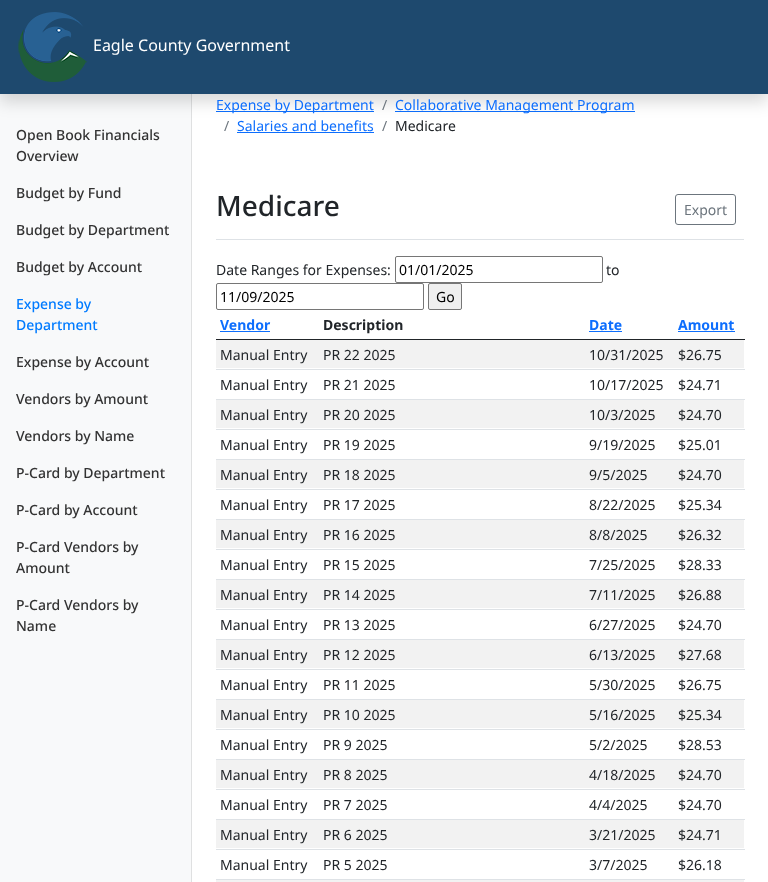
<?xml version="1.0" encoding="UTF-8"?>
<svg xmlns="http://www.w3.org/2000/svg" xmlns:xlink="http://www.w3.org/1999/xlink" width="768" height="882">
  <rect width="100%" height="100%" fill="#ffffff" />
  <rect y="94" width="191" height="788" fill="#f8f9fa" />
  <rect x="191" y="94" width="1" height="788" fill="#dfe0e1" />
  <rect x="216" y="111" width="158" height="1" fill="#0d6efd" />
  <rect x="395" y="111" width="240" height="1" fill="#0d6efd" />
  <rect y="8" width="768" height="94" fill="#000000" fill-opacity="0.15" filter="blur(8px)" />
  <rect width="768" height="94" fill="#1e496e" />
  <image x="18" y="12" width="69" height="70" xlink:href="image1.png" />
  <rect x="237" y="132" width="137" height="1" fill="#0d6efd" />
  <rect x="216" y="239" width="528" height="1" fill="#dee2e6" />
  <rect x="675.5" y="194.5" width="60" height="30" rx="2.5" fill="none" stroke="#6c757d" />
  <rect x="395.5" y="256.5" width="207" height="26" rx="1.5" fill="none" stroke="#767676" />
  <rect x="216.5" y="283.5" width="207" height="26" rx="1.5" fill="none" stroke="#767676" />
  <rect x="428.5" y="283.5" width="33" height="26" rx="1.5" fill="#efefef" stroke="#767676" />
  <rect x="220" y="331" width="50" height="1" fill="#0d6efd" />
  <rect x="589" y="331" width="33" height="1" fill="#0d6efd" />
  <rect x="216" y="339" width="529" height="1" fill="#212529" />
  <rect x="678" y="331" width="57" height="1" fill="#0d6efd" />
  <rect x="216" y="340" width="528" height="28" fill="#f2f2f2" />
  <rect x="216" y="369" width="529" height="1" fill="#dee2e6" />
  <rect x="216" y="399" width="529" height="1" fill="#dee2e6" />
  <rect x="216" y="400" width="528" height="28" fill="#f2f2f2" />
  <rect x="216" y="429" width="529" height="1" fill="#dee2e6" />
  <rect x="216" y="459" width="529" height="1" fill="#dee2e6" />
  <rect x="216" y="460" width="528" height="28" fill="#f2f2f2" />
  <rect x="216" y="489" width="529" height="1" fill="#dee2e6" />
  <rect x="216" y="519" width="529" height="1" fill="#dee2e6" />
  <rect x="216" y="520" width="528" height="28" fill="#f2f2f2" />
  <rect x="216" y="549" width="529" height="1" fill="#dee2e6" />
  <rect x="216" y="579" width="529" height="1" fill="#dee2e6" />
  <rect x="216" y="580" width="528" height="28" fill="#f2f2f2" />
  <rect x="216" y="609" width="529" height="1" fill="#dee2e6" />
  <rect x="216" y="639" width="529" height="1" fill="#dee2e6" />
  <rect x="216" y="640" width="528" height="28" fill="#f2f2f2" />
  <rect x="216" y="669" width="529" height="1" fill="#dee2e6" />
  <rect x="216" y="699" width="529" height="1" fill="#dee2e6" />
  <rect x="216" y="700" width="528" height="28" fill="#f2f2f2" />
  <rect x="216" y="729" width="529" height="1" fill="#dee2e6" />
  <rect x="216" y="759" width="529" height="1" fill="#dee2e6" />
  <rect x="216" y="760" width="528" height="28" fill="#f2f2f2" />
  <rect x="216" y="789" width="529" height="1" fill="#dee2e6" />
  <rect x="216" y="819" width="529" height="1" fill="#dee2e6" />
  <rect x="216" y="820" width="528" height="28" fill="#f2f2f2" />
  <rect x="216" y="849" width="529" height="1" fill="#dee2e6" />
  <rect x="216" y="879" width="529" height="1" fill="#dee2e6" />
  <rect x="216" y="880" width="528" height="2" fill="#f2f2f2" />
  <text x="93" y="51" style="font-family: Noto Sans; font-size: 16px; fill: #ffffff">Eagle County Government</text>
  <text x="16" y="140" style="font-family: Noto Sans; font-size: 14px; font-weight: 500; fill: #333333">Open Book Financials</text>
  <text x="16" y="161" style="font-family: Noto Sans; font-size: 14px; font-weight: 500; fill: #333333">Overview</text>
  <text x="16" y="198" style="font-family: Noto Sans; font-size: 14px; font-weight: 500; fill: #333333">Budget by Fund</text>
  <text x="16" y="235" style="font-family: Noto Sans; font-size: 14px; font-weight: 500; fill: #333333">Budget by Department</text>
  <text x="16" y="272" style="font-family: Noto Sans; font-size: 14px; font-weight: 500; fill: #333333">Budget by Account</text>
  <text x="16" y="309" style="font-family: Noto Sans; font-size: 14px; font-weight: 500; fill: #007bff">Expense by</text>
  <text x="16" y="330" style="font-family: Noto Sans; font-size: 14px; font-weight: 500; fill: #007bff">Department</text>
  <text x="16" y="367" style="font-family: Noto Sans; font-size: 14px; font-weight: 500; fill: #333333">Expense by Account</text>
  <text x="16" y="404" style="font-family: Noto Sans; font-size: 14px; font-weight: 500; fill: #333333">Vendors by Amount</text>
  <text x="16" y="441" style="font-family: Noto Sans; font-size: 14px; font-weight: 500; fill: #333333">Vendors by Name</text>
  <text x="16" y="478" style="font-family: Noto Sans; font-size: 14px; font-weight: 500; fill: #333333">P-Card by Department</text>
  <text x="16" y="515" style="font-family: Noto Sans; font-size: 14px; font-weight: 500; fill: #333333">P-Card by Account</text>
  <text x="16" y="552" style="font-family: Noto Sans; font-size: 14px; font-weight: 500; fill: #333333">P-Card Vendors by</text>
  <text x="16" y="573" style="font-family: Noto Sans; font-size: 14px; font-weight: 500; fill: #333333">Amount</text>
  <text x="16" y="610" style="font-family: Noto Sans; font-size: 14px; font-weight: 500; fill: #333333">P-Card Vendors by</text>
  <text x="16" y="631" style="font-family: Noto Sans; font-size: 14px; font-weight: 500; fill: #333333">Name</text>
  <text x="216" y="110" style="font-family: Noto Sans; font-size: 14px; fill: #0d6efd">Expense by Department</text>
  <text x="382" y="110" style="font-family: Noto Sans; font-size: 14px; fill: #6c757d">/</text>
  <text x="395" y="110" style="font-family: Noto Sans; font-size: 14px; fill: #0d6efd">Collaborative Management Program</text>
  <text x="224" y="131" style="font-family: Noto Sans; font-size: 14px; fill: #6c757d">/</text>
  <text x="237" y="131" style="font-family: Noto Sans; font-size: 14px; fill: #0d6efd">Salaries and benefits</text>
  <text x="382" y="131" style="font-family: Noto Sans; font-size: 14px; fill: #6c757d">/</text>
  <text x="395" y="131" style="font-family: Noto Sans; font-size: 14px; fill: #212529">Medicare</text>
  <text x="216" y="216" style="font-family: Noto Sans; font-size: 28px; font-weight: 500; fill: #212529">Medicare</text>
  <text x="684" y="215" style="font-family: Noto Sans; font-size: 14px; fill: #6c757d">Export</text>
  <text x="216" y="275" style="font-family: Noto Sans; font-size: 14px; fill: #212529">Date Ranges for Expenses:</text>
  <text x="399" y="275" style="font-family: Noto Sans; font-size: 14px; fill: #000000">01/01/2025</text>
  <text x="606" y="275" style="font-family: Noto Sans; font-size: 14px; fill: #212529">to</text>
  <text x="220" y="302" style="font-family: Noto Sans; font-size: 14px; fill: #000000">11/09/2025</text>
  <text x="436" y="302" style="font-family: Noto Sans; font-size: 14px; fill: #000000">Go</text>
  <text x="220" y="330" style="font-family: Noto Sans; font-size: 14px; font-weight: bold; fill: #0d6efd">Vendor</text>
  <text x="323" y="330" style="font-family: Noto Sans; font-size: 14px; font-weight: bold; fill: #212529">Description</text>
  <text x="589" y="330" style="font-family: Noto Sans; font-size: 14px; font-weight: bold; fill: #0d6efd">Date</text>
  <text x="678" y="330" style="font-family: Noto Sans; font-size: 14px; font-weight: bold; fill: #0d6efd">Amount</text>
  <text x="220" y="360" style="font-family: Noto Sans; font-size: 14px; fill: #212529">Manual Entry</text>
  <text x="323" y="360" style="font-family: Noto Sans; font-size: 14px; fill: #212529">PR 22 2025</text>
  <text x="589" y="360" style="font-family: Noto Sans; font-size: 14px; fill: #212529">10/31/2025</text>
  <text x="678" y="360" style="font-family: Noto Sans; font-size: 14px; fill: #212529">$26.75</text>
  <text x="220" y="390" style="font-family: Noto Sans; font-size: 14px; fill: #212529">Manual Entry</text>
  <text x="323" y="390" style="font-family: Noto Sans; font-size: 14px; fill: #212529">PR 21 2025</text>
  <text x="589" y="390" style="font-family: Noto Sans; font-size: 14px; fill: #212529">10/17/2025</text>
  <text x="678" y="390" style="font-family: Noto Sans; font-size: 14px; fill: #212529">$24.71</text>
  <text x="220" y="420" style="font-family: Noto Sans; font-size: 14px; fill: #212529">Manual Entry</text>
  <text x="323" y="420" style="font-family: Noto Sans; font-size: 14px; fill: #212529">PR 20 2025</text>
  <text x="589" y="420" style="font-family: Noto Sans; font-size: 14px; fill: #212529">10/3/2025</text>
  <text x="678" y="420" style="font-family: Noto Sans; font-size: 14px; fill: #212529">$24.70</text>
  <text x="220" y="450" style="font-family: Noto Sans; font-size: 14px; fill: #212529">Manual Entry</text>
  <text x="323" y="450" style="font-family: Noto Sans; font-size: 14px; fill: #212529">PR 19 2025</text>
  <text x="589" y="450" style="font-family: Noto Sans; font-size: 14px; fill: #212529">9/19/2025</text>
  <text x="678" y="450" style="font-family: Noto Sans; font-size: 14px; fill: #212529">$25.01</text>
  <text x="220" y="480" style="font-family: Noto Sans; font-size: 14px; fill: #212529">Manual Entry</text>
  <text x="323" y="480" style="font-family: Noto Sans; font-size: 14px; fill: #212529">PR 18 2025</text>
  <text x="589" y="480" style="font-family: Noto Sans; font-size: 14px; fill: #212529">9/5/2025</text>
  <text x="678" y="480" style="font-family: Noto Sans; font-size: 14px; fill: #212529">$24.70</text>
  <text x="220" y="510" style="font-family: Noto Sans; font-size: 14px; fill: #212529">Manual Entry</text>
  <text x="323" y="510" style="font-family: Noto Sans; font-size: 14px; fill: #212529">PR 17 2025</text>
  <text x="589" y="510" style="font-family: Noto Sans; font-size: 14px; fill: #212529">8/22/2025</text>
  <text x="678" y="510" style="font-family: Noto Sans; font-size: 14px; fill: #212529">$25.34</text>
  <text x="220" y="540" style="font-family: Noto Sans; font-size: 14px; fill: #212529">Manual Entry</text>
  <text x="323" y="540" style="font-family: Noto Sans; font-size: 14px; fill: #212529">PR 16 2025</text>
  <text x="589" y="540" style="font-family: Noto Sans; font-size: 14px; fill: #212529">8/8/2025</text>
  <text x="678" y="540" style="font-family: Noto Sans; font-size: 14px; fill: #212529">$26.32</text>
  <text x="220" y="570" style="font-family: Noto Sans; font-size: 14px; fill: #212529">Manual Entry</text>
  <text x="323" y="570" style="font-family: Noto Sans; font-size: 14px; fill: #212529">PR 15 2025</text>
  <text x="589" y="570" style="font-family: Noto Sans; font-size: 14px; fill: #212529">7/25/2025</text>
  <text x="678" y="570" style="font-family: Noto Sans; font-size: 14px; fill: #212529">$28.33</text>
  <text x="220" y="600" style="font-family: Noto Sans; font-size: 14px; fill: #212529">Manual Entry</text>
  <text x="323" y="600" style="font-family: Noto Sans; font-size: 14px; fill: #212529">PR 14 2025</text>
  <text x="589" y="600" style="font-family: Noto Sans; font-size: 14px; fill: #212529">7/11/2025</text>
  <text x="678" y="600" style="font-family: Noto Sans; font-size: 14px; fill: #212529">$26.88</text>
  <text x="220" y="630" style="font-family: Noto Sans; font-size: 14px; fill: #212529">Manual Entry</text>
  <text x="323" y="630" style="font-family: Noto Sans; font-size: 14px; fill: #212529">PR 13 2025</text>
  <text x="589" y="630" style="font-family: Noto Sans; font-size: 14px; fill: #212529">6/27/2025</text>
  <text x="678" y="630" style="font-family: Noto Sans; font-size: 14px; fill: #212529">$24.70</text>
  <text x="220" y="660" style="font-family: Noto Sans; font-size: 14px; fill: #212529">Manual Entry</text>
  <text x="323" y="660" style="font-family: Noto Sans; font-size: 14px; fill: #212529">PR 12 2025</text>
  <text x="589" y="660" style="font-family: Noto Sans; font-size: 14px; fill: #212529">6/13/2025</text>
  <text x="678" y="660" style="font-family: Noto Sans; font-size: 14px; fill: #212529">$27.68</text>
  <text x="220" y="690" style="font-family: Noto Sans; font-size: 14px; fill: #212529">Manual Entry</text>
  <text x="323" y="690" style="font-family: Noto Sans; font-size: 14px; fill: #212529">PR 11 2025</text>
  <text x="589" y="690" style="font-family: Noto Sans; font-size: 14px; fill: #212529">5/30/2025</text>
  <text x="678" y="690" style="font-family: Noto Sans; font-size: 14px; fill: #212529">$26.75</text>
  <text x="220" y="720" style="font-family: Noto Sans; font-size: 14px; fill: #212529">Manual Entry</text>
  <text x="323" y="720" style="font-family: Noto Sans; font-size: 14px; fill: #212529">PR 10 2025</text>
  <text x="589" y="720" style="font-family: Noto Sans; font-size: 14px; fill: #212529">5/16/2025</text>
  <text x="678" y="720" style="font-family: Noto Sans; font-size: 14px; fill: #212529">$25.34</text>
  <text x="220" y="750" style="font-family: Noto Sans; font-size: 14px; fill: #212529">Manual Entry</text>
  <text x="323" y="750" style="font-family: Noto Sans; font-size: 14px; fill: #212529">PR 9 2025</text>
  <text x="589" y="750" style="font-family: Noto Sans; font-size: 14px; fill: #212529">5/2/2025</text>
  <text x="678" y="750" style="font-family: Noto Sans; font-size: 14px; fill: #212529">$28.53</text>
  <text x="220" y="780" style="font-family: Noto Sans; font-size: 14px; fill: #212529">Manual Entry</text>
  <text x="323" y="780" style="font-family: Noto Sans; font-size: 14px; fill: #212529">PR 8 2025</text>
  <text x="589" y="780" style="font-family: Noto Sans; font-size: 14px; fill: #212529">4/18/2025</text>
  <text x="678" y="780" style="font-family: Noto Sans; font-size: 14px; fill: #212529">$24.70</text>
  <text x="220" y="810" style="font-family: Noto Sans; font-size: 14px; fill: #212529">Manual Entry</text>
  <text x="323" y="810" style="font-family: Noto Sans; font-size: 14px; fill: #212529">PR 7 2025</text>
  <text x="589" y="810" style="font-family: Noto Sans; font-size: 14px; fill: #212529">4/4/2025</text>
  <text x="678" y="810" style="font-family: Noto Sans; font-size: 14px; fill: #212529">$24.70</text>
  <text x="220" y="840" style="font-family: Noto Sans; font-size: 14px; fill: #212529">Manual Entry</text>
  <text x="323" y="840" style="font-family: Noto Sans; font-size: 14px; fill: #212529">PR 6 2025</text>
  <text x="589" y="840" style="font-family: Noto Sans; font-size: 14px; fill: #212529">3/21/2025</text>
  <text x="678" y="840" style="font-family: Noto Sans; font-size: 14px; fill: #212529">$24.71</text>
  <text x="220" y="870" style="font-family: Noto Sans; font-size: 14px; fill: #212529">Manual Entry</text>
  <text x="323" y="870" style="font-family: Noto Sans; font-size: 14px; fill: #212529">PR 5 2025</text>
  <text x="589" y="870" style="font-family: Noto Sans; font-size: 14px; fill: #212529">3/7/2025</text>
  <text x="678" y="870" style="font-family: Noto Sans; font-size: 14px; fill: #212529">$26.18</text>
</svg>
